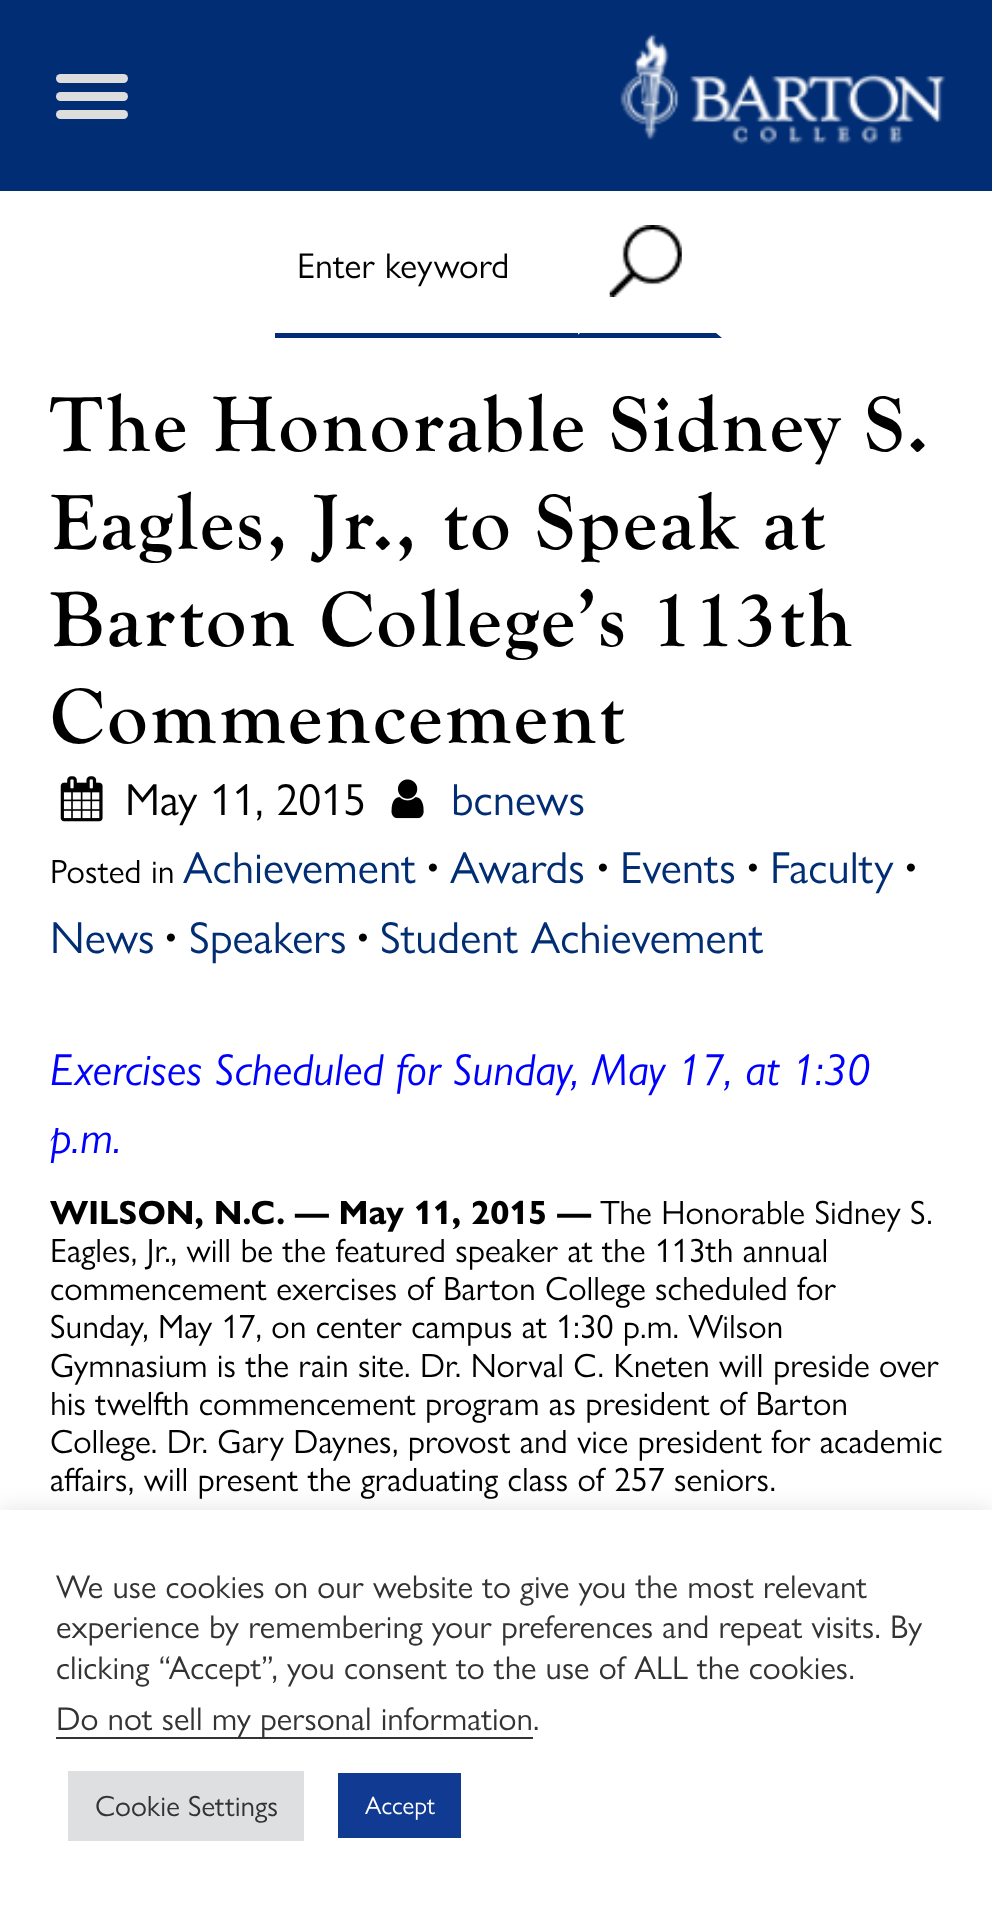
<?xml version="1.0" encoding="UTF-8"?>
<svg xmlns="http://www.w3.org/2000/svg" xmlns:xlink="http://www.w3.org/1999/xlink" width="992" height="1905">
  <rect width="100%" height="100%" fill="#ffffff" />
  <rect width="992" height="191" fill="#002d74" />
  <image x="620" y="33" width="326" height="112" xlink:href="image1.png" />
  <rect x="56" y="74" width="72" height="9" rx="4.5" fill="#dddddd" />
  <rect x="56" y="92" width="72" height="9" rx="4.5" fill="#dddddd" />
  <rect x="56" y="110" width="72" height="9" rx="4.5" fill="#dddddd" />
  <rect x="275" y="333" width="303" height="5" fill="#002d74" />
  <image x="609" y="225" width="73" height="72" xlink:href="image2.png" />
  <path d="M 722 338 h -148 l 6 -5 h 136 z" fill="#002d74" />
  <image x="60" y="776" width="43" height="46" xlink:href="image3.png" />
  <image x="391" y="779" width="33" height="40" xlink:href="image4.png" />
  <rect y="1508" width="992" height="396" fill="#acabab" fill-opacity="0.3" filter="blur(11px)" />
  <rect y="1510" width="992" height="395" fill="#ffffff" />
  <rect x="56" y="1737" width="477" height="2" fill="#333333" />
  <rect x="68" y="1771" width="236" height="70" fill="#dedfe0" />
  <rect x="338" y="1773" width="123" height="65" fill="#113a93" />
  <text x="297" y="278" style="font-family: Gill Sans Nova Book; font-size: 36px; fill: #000000">Enter keyword</text>
  <text x="50" y="451" style="font-family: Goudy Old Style; font-size: 81px; font-weight: bold; letter-spacing: 2.25px; fill: #000000">The Honorable Sidney S.</text>
  <text x="50" y="549" style="font-family: Goudy Old Style; font-size: 81px; font-weight: bold; letter-spacing: 2.25px; fill: #000000">Eagles, Jr., to Speak at</text>
  <text x="50" y="646" style="font-family: Goudy Old Style; font-size: 81px; font-weight: bold; letter-spacing: 2.25px; fill: #000000">Barton College’s 113th</text>
  <text x="50" y="743" style="font-family: Goudy Old Style; font-size: 81px; font-weight: bold; letter-spacing: 2.25px; fill: #000000">Commencement</text>
  <text x="125" y="815" style="font-family: Gill Sans Nova Book; font-size: 45px; fill: #000000">May 11, 2015</text>
  <text x="451" y="815" style="font-family: Gill Sans Nova Book; font-size: 45px; fill: #002d74">bcnews</text>
  <text x="50" y="883" style="font-family: Gill Sans Nova Book; font-size: 33.75px; fill: #000000">Posted in</text>
  <text x="183" y="883" style="font-family: Gill Sans Nova Book; font-size: 45px; fill: #002d74">Achievement</text>
  <text x="427" y="883" style="font-family: Gill Sans Nova Book; font-size: 45px; font-weight: bold; fill: #000000">·</text>
  <text x="450" y="883" style="font-family: Gill Sans Nova Book; font-size: 45px; fill: #002d74">Awards</text>
  <text x="597" y="883" style="font-family: Gill Sans Nova Book; font-size: 45px; font-weight: bold; fill: #000000">·</text>
  <text x="620" y="883" style="font-family: Gill Sans Nova Book; font-size: 45px; fill: #002d74">Events</text>
  <text x="747" y="883" style="font-family: Gill Sans Nova Book; font-size: 45px; font-weight: bold; fill: #000000">·</text>
  <text x="770" y="883" style="font-family: Gill Sans Nova Book; font-size: 45px; fill: #002d74">Faculty</text>
  <text x="905" y="883" style="font-family: Gill Sans Nova Book; font-size: 45px; font-weight: bold; fill: #000000">·</text>
  <text x="50" y="953" style="font-family: Gill Sans Nova Book; font-size: 45px; fill: #002d74">News</text>
  <text x="165" y="953" style="font-family: Gill Sans Nova Book; font-size: 45px; font-weight: bold; fill: #000000">·</text>
  <text x="189" y="953" style="font-family: Gill Sans Nova Book; font-size: 45px; fill: #002d74">Speakers</text>
  <text x="357" y="953" style="font-family: Gill Sans Nova Book; font-size: 45px; font-weight: bold; fill: #000000">·</text>
  <text x="380" y="953" style="font-family: Gill Sans Nova Book; font-size: 45px; fill: #002d74">Student Achievement</text>
  <text x="50" y="1085" style="font-family: Gill Sans Nova Book; font-size: 45px; font-style: italic; fill: #0000ff">Exercises Scheduled for Sunday, May 17, at 1:30</text>
  <text x="50" y="1153" style="font-family: Gill Sans Nova Book; font-size: 45px; font-style: italic; fill: #0000ff">p.m.</text>
  <text x="50" y="1224" style="font-family: Gill Sans Nova Book; font-size: 33.75px; font-weight: bold; fill: #000000">WILSON, N.C. — May 11, 2015 —</text>
  <text x="600" y="1224" style="font-family: Gill Sans Nova Book; font-size: 33.75px; fill: #000000">The Honorable Sidney S.</text>
  <text x="50" y="1262" style="font-family: Gill Sans Nova Book; font-size: 33.75px; fill: #000000">Eagles, Jr., will be the featured speaker at the 113th annual</text>
  <text x="50" y="1300" style="font-family: Gill Sans Nova Book; font-size: 33.75px; fill: #000000">commencement exercises of Barton College scheduled for</text>
  <text x="50" y="1338" style="font-family: Gill Sans Nova Book; font-size: 33.75px; fill: #000000">Sunday, May 17, on center campus at 1:30 p.m. Wilson</text>
  <text x="50" y="1377" style="font-family: Gill Sans Nova Book; font-size: 33.75px; fill: #000000">Gymnasium is the rain site. Dr. Norval C. Kneten will preside over</text>
  <text x="50" y="1415" style="font-family: Gill Sans Nova Book; font-size: 33.75px; fill: #000000">his twelfth commencement program as president of Barton</text>
  <text x="50" y="1453" style="font-family: Gill Sans Nova Book; font-size: 33.75px; fill: #000000">College. Dr. Gary Daynes, provost and vice president for academic</text>
  <text x="50" y="1491" style="font-family: Gill Sans Nova Book; font-size: 33.75px; fill: #000000">affairs, will present the graduating class of 257 seniors.</text>
  <text x="56" y="1598" style="font-family: Gill Sans Nova Book; font-size: 33px; fill: #333333">We use cookies on our website to give you the most relevant</text>
  <text x="56" y="1638" style="font-family: Gill Sans Nova Book; font-size: 33px; fill: #333333">experience by remembering your preferences and repeat visits. By</text>
  <text x="56" y="1679" style="font-family: Gill Sans Nova Book; font-size: 33px; fill: #333333">clicking “Accept”, you consent to the use of ALL the cookies.</text>
  <text x="56" y="1730" style="font-family: Gill Sans Nova Book; font-size: 33px; fill: #333333">Do not sell my personal information</text>
  <text x="533" y="1730" style="font-family: Gill Sans Nova Book; font-size: 33px; fill: #333333">.</text>
  <text x="95" y="1816" style="font-family: Gill Sans Nova Book; font-size: 29.25px; fill: #333333">Cookie Settings</text>
  <text x="365" y="1814" style="font-family: Gill Sans Nova Book; font-size: 25px; fill: #ffffff">Accept</text>
</svg>
